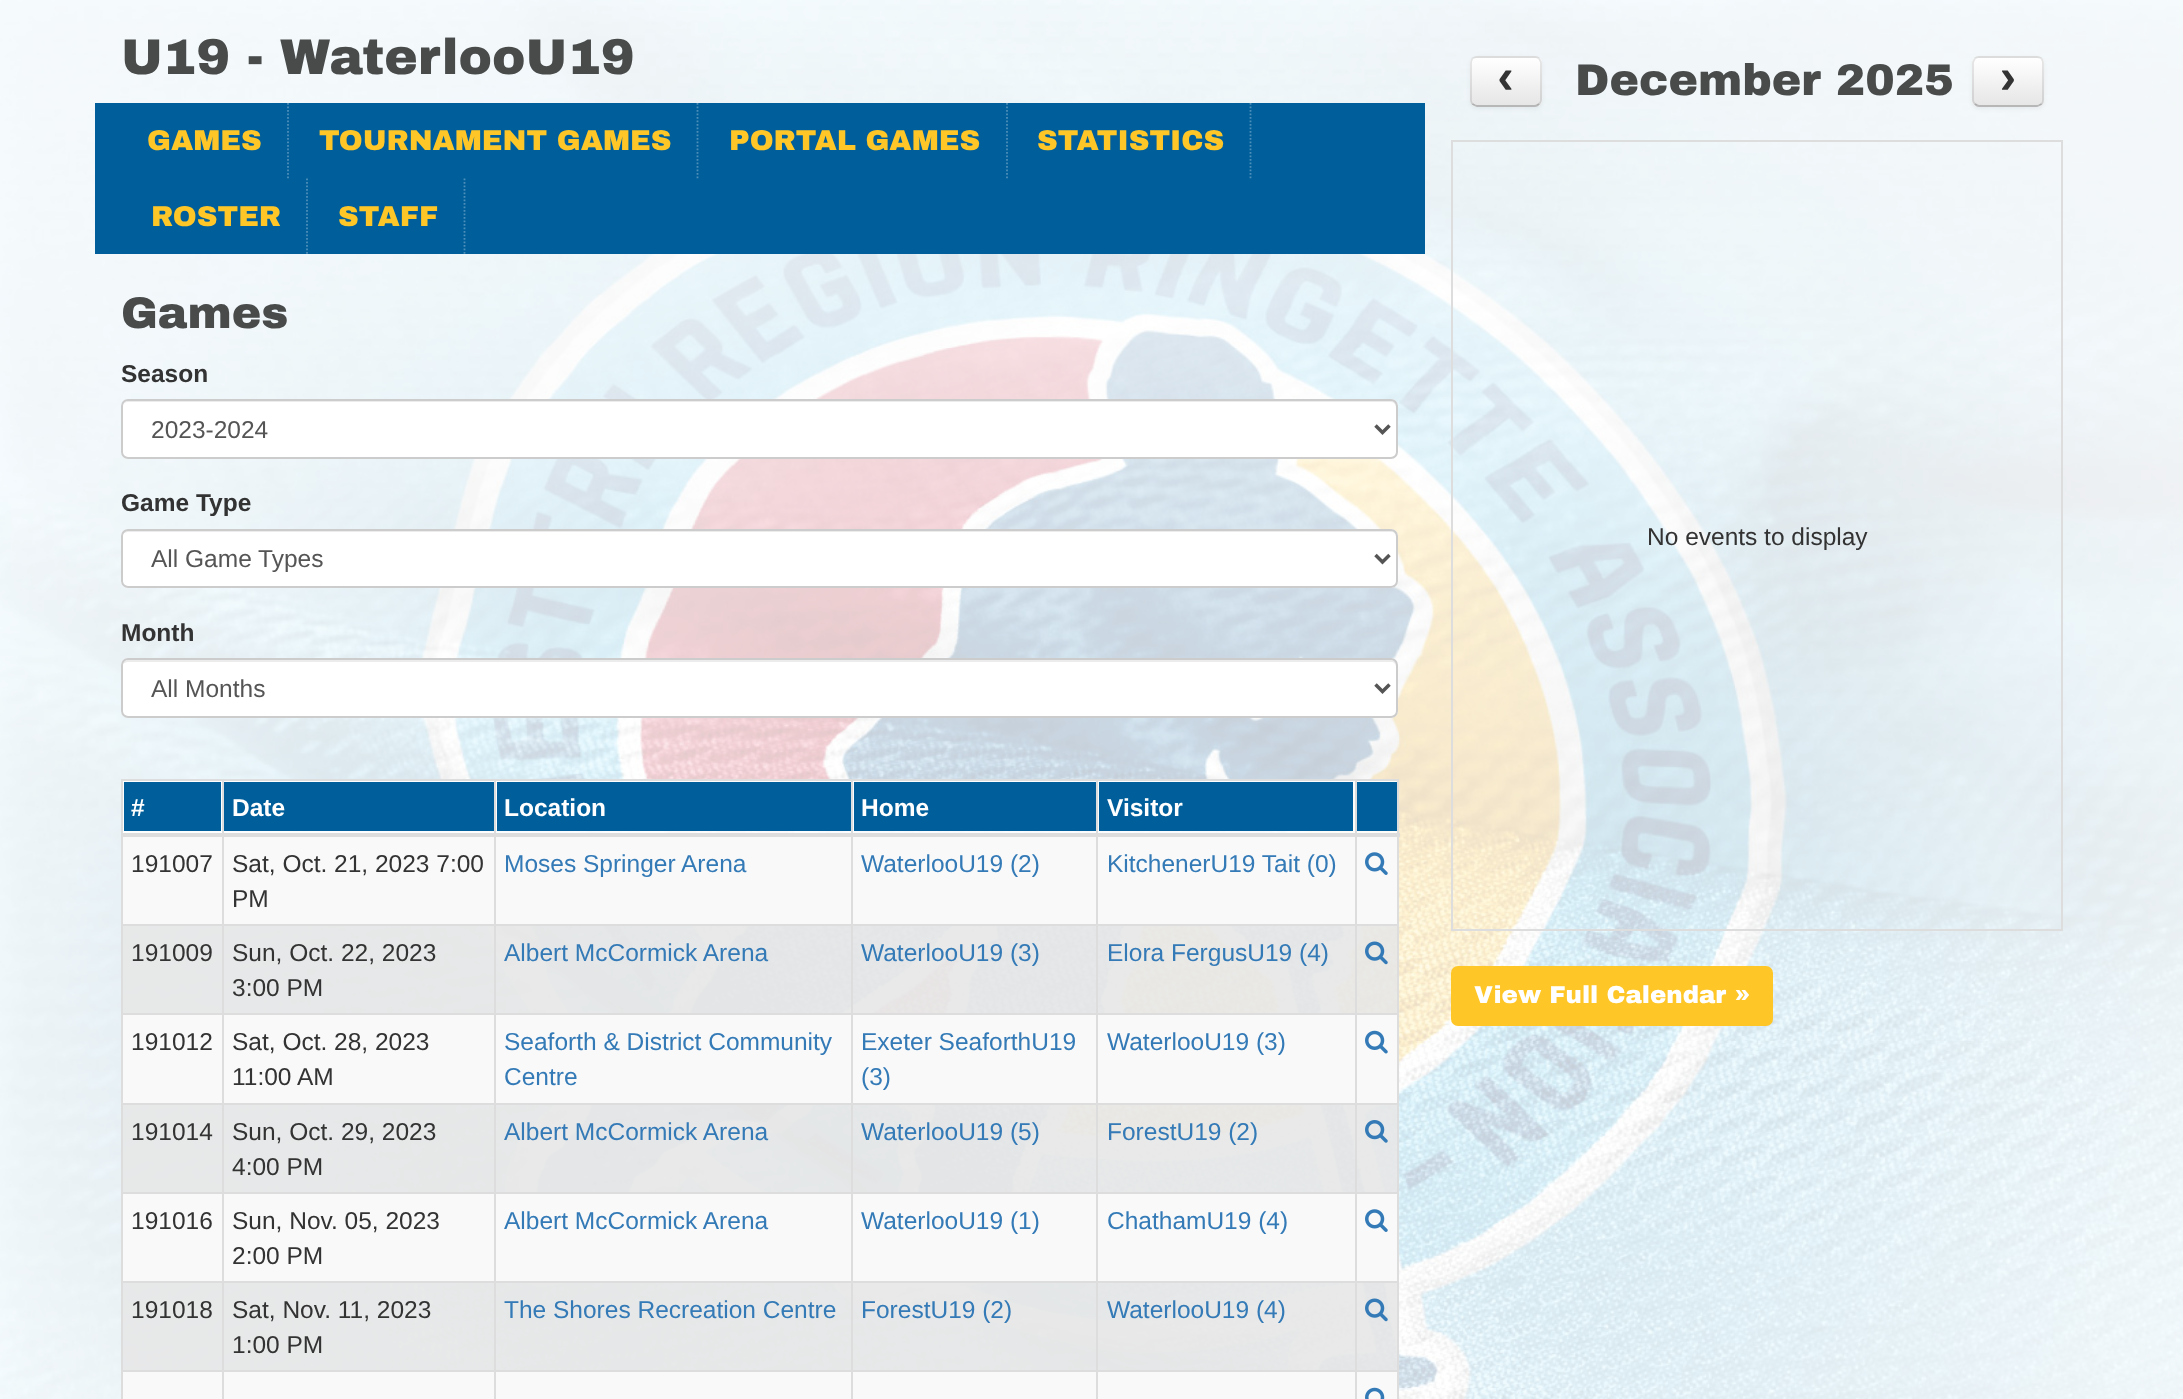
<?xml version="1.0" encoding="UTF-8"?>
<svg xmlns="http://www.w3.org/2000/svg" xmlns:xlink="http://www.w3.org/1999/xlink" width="2183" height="1399">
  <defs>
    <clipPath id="clip1"><rect x="1470" y="56" width="72" height="51" rx="7" /></clipPath>
    <linearGradient id="g1" gradientUnits="userSpaceOnUse" x1="1506" y1="58" x2="1506" y2="105"><stop offset="0" stop-color="#ffffff" /><stop offset="1" stop-color="#e6e6e6" /></linearGradient>
    <clipPath id="clip2"><rect x="1972" y="56" width="72" height="51" rx="7" /></clipPath>
    <linearGradient id="g2" gradientUnits="userSpaceOnUse" x1="2008" y1="58" x2="2008" y2="105"><stop offset="0" stop-color="#ffffff" /><stop offset="1" stop-color="#e6e6e6" /></linearGradient>
  </defs>
  <rect width="100%" height="100%" fill="#ffffff" />
  <image x="0" y="0" width="2183" height="1399" xlink:href="image1.png" />
  <rect x="95" y="103" width="1330" height="151" fill="#005f9b" />
  <path d="M 288 103 v 75.5" fill="none" stroke="#4d8fb9" stroke-width="1.8" stroke-dasharray="1.75 1.75" />
  <path d="M 697.5 103 v 75.5" fill="none" stroke="#4d8fb9" stroke-width="1.8" stroke-dasharray="1.75 1.75" />
  <path d="M 1007 103 v 75.5" fill="none" stroke="#4d8fb9" stroke-width="1.8" stroke-dasharray="1.75 1.75" />
  <path d="M 1250.5 103 v 75.5" fill="none" stroke="#4d8fb9" stroke-width="1.8" stroke-dasharray="1.75 1.75" />
  <path d="M 307 178.5 v 75.5" fill="none" stroke="#4d8fb9" stroke-width="1.8" stroke-dasharray="1.75 1.75" />
  <path d="M 464.5 178.5 v 75.5" fill="none" stroke="#4d8fb9" stroke-width="1.8" stroke-dasharray="1.75 1.75" />
  <rect x="121" y="399" width="1277" height="60" rx="7" fill="#ffffff" />
  <path d="M 128 402 h 1263 c 3 0 5 3 5 6 v 45 l -1 3 c 1 -1 2 -3 2 -4 v -46 c 0 -3 -2 -5 -5 -5 h -1264 c -2 0 -4 2 -5 4 c 1 -2 3 -3 5 -3 z" fill="#ececec" />
  <rect x="122" y="400" width="1275" height="58" rx="6" fill="none" stroke="#cccccc" stroke-width="2" />
  <path d="M 1375.5 425.5 l 7 7 l 7 -7" fill="none" stroke="#555555" stroke-width="3.5" />
  <rect x="121" y="529" width="1277" height="59" rx="7" fill="#ffffff" />
  <path d="M 128 532 h 1263 c 3 0 5 2 5 5 v 47 c 1 -1 1 -2 1 -3 v -46 c 0 -3 -2 -5 -5 -5 h -1264 c -2 0 -5 2 -5 4 c 1 -1 3 -2 5 -2 z" fill="#ececec" />
  <rect x="122" y="530" width="1275" height="57" rx="6" fill="none" stroke="#cccccc" stroke-width="2" />
  <path d="M 1375.5 555 l 7 7 l 7 -7" fill="none" stroke="#555555" stroke-width="3.5" />
  <rect x="121" y="658" width="1277" height="60" rx="7" fill="#ffffff" />
  <path d="M 128 662 h 1263 c 3 0 5 2 5 5 v 45 v 3 c 0 -1 1 -3 1 -4 v -46 c 0 -3 -2 -5 -5 -5 h -1264 c -2 0 -5 2 -5 4 c 1 -1 3 -2 5 -2 z" fill="#ececec" />
  <rect x="122" y="659" width="1275" height="58" rx="6" fill="none" stroke="#cccccc" stroke-width="2" />
  <path d="M 1375.5 684.5 l 7 7 l 7 -7" fill="none" stroke="#555555" stroke-width="3.5" />
  <rect x="121" y="779" width="1277" height="2" fill="#dddddd" />
  <rect x="1397" y="779" width="2" height="620" fill="#dddddd" />
  <rect x="121" y="779" width="2" height="620" fill="#dddddd" />
  <rect x="123" y="781" width="1274" height="52" fill="#ffffff" fill-opacity="0.9" />
  <rect x="1357" y="782" width="40" height="49" fill="#005f9b" />
  <rect x="123" y="837" width="1274" height="87" fill="#f9f9f9" />
  <rect x="1355" y="924" width="43" height="2" fill="#dddddd" />
  <rect x="123" y="926" width="1274" height="87" fill="#e7e7e7" fill-opacity="0.9" />
  <rect x="1355" y="1013" width="43" height="2" fill="#dddddd" />
  <rect x="123" y="1015" width="1274" height="88" fill="#f9f9f9" />
  <rect x="1355" y="1103" width="43" height="2" fill="#dddddd" />
  <rect x="123" y="1105" width="1274" height="87" fill="#e7e7e7" fill-opacity="0.9" />
  <rect x="1355" y="1192" width="43" height="2" fill="#dddddd" />
  <rect x="123" y="1194" width="1274" height="87" fill="#f9f9f9" />
  <rect x="1355" y="1281" width="43" height="2" fill="#dddddd" />
  <rect x="123" y="1283" width="1274" height="87" fill="#e7e7e7" fill-opacity="0.9" />
  <rect x="1355" y="1370" width="43" height="2" fill="#dddddd" />
  <rect x="123" y="1372" width="1274" height="27" fill="#f9f9f9" />
  <rect x="1355" y="1370" width="2" height="29" fill="#dddddd" />
  <rect x="1096" y="1370" width="260" height="2" fill="#dddddd" />
  <rect x="1355" y="1281" width="2" height="91" fill="#dddddd" />
  <rect x="1096" y="1281" width="260" height="2" fill="#dddddd" />
  <rect x="1355" y="1192" width="2" height="91" fill="#dddddd" />
  <rect x="1096" y="1192" width="260" height="2" fill="#dddddd" />
  <rect x="1355" y="1103" width="2" height="91" fill="#dddddd" />
  <rect x="1096" y="1103" width="260" height="2" fill="#dddddd" />
  <rect x="1355" y="1013" width="2" height="91" fill="#dddddd" />
  <rect x="1096" y="1013" width="260" height="2" fill="#dddddd" />
  <rect x="1355" y="924" width="2" height="91" fill="#dddddd" />
  <rect x="1096" y="924" width="260" height="2" fill="#dddddd" />
  <rect x="1096" y="1370" width="2" height="29" fill="#dddddd" />
  <rect x="851" y="1370" width="246" height="2" fill="#dddddd" />
  <rect x="1096" y="1281" width="2" height="91" fill="#dddddd" />
  <rect x="851" y="1281" width="246" height="2" fill="#dddddd" />
  <rect x="1096" y="1192" width="2" height="91" fill="#dddddd" />
  <rect x="851" y="1192" width="246" height="2" fill="#dddddd" />
  <rect x="1096" y="1103" width="2" height="91" fill="#dddddd" />
  <rect x="851" y="1103" width="246" height="2" fill="#dddddd" />
  <rect x="1096" y="1013" width="2" height="91" fill="#dddddd" />
  <rect x="851" y="1013" width="246" height="2" fill="#dddddd" />
  <rect x="1096" y="924" width="2" height="91" fill="#dddddd" />
  <rect x="851" y="924" width="246" height="2" fill="#dddddd" />
  <rect x="851" y="1370" width="2" height="29" fill="#dddddd" />
  <rect x="494" y="1370" width="358" height="2" fill="#dddddd" />
  <rect x="851" y="1281" width="2" height="91" fill="#dddddd" />
  <rect x="494" y="1281" width="358" height="2" fill="#dddddd" />
  <rect x="851" y="1192" width="2" height="91" fill="#dddddd" />
  <rect x="494" y="1192" width="358" height="2" fill="#dddddd" />
  <rect x="851" y="1103" width="2" height="91" fill="#dddddd" />
  <rect x="494" y="1103" width="358" height="2" fill="#dddddd" />
  <rect x="851" y="1013" width="2" height="91" fill="#dddddd" />
  <rect x="494" y="1013" width="358" height="2" fill="#dddddd" />
  <rect x="851" y="924" width="2" height="91" fill="#dddddd" />
  <rect x="494" y="924" width="358" height="2" fill="#dddddd" />
  <rect x="494" y="1370" width="2" height="29" fill="#dddddd" />
  <rect x="222" y="1370" width="273" height="2" fill="#dddddd" />
  <rect x="494" y="1281" width="2" height="91" fill="#dddddd" />
  <rect x="222" y="1281" width="273" height="2" fill="#dddddd" />
  <rect x="494" y="1192" width="2" height="91" fill="#dddddd" />
  <rect x="222" y="1192" width="273" height="2" fill="#dddddd" />
  <rect x="494" y="1103" width="2" height="91" fill="#dddddd" />
  <rect x="222" y="1103" width="273" height="2" fill="#dddddd" />
  <rect x="494" y="1013" width="2" height="91" fill="#dddddd" />
  <rect x="222" y="1013" width="273" height="2" fill="#dddddd" />
  <rect x="494" y="924" width="2" height="91" fill="#dddddd" />
  <rect x="222" y="924" width="273" height="2" fill="#dddddd" />
  <rect x="222" y="1370" width="2" height="29" fill="#dddddd" />
  <rect x="121" y="1370" width="103" height="2" fill="#dddddd" />
  <rect x="222" y="1281" width="2" height="91" fill="#dddddd" />
  <rect x="121" y="1281" width="103" height="2" fill="#dddddd" />
  <rect x="222" y="1192" width="2" height="91" fill="#dddddd" />
  <rect x="121" y="1192" width="103" height="2" fill="#dddddd" />
  <rect x="222" y="1103" width="2" height="91" fill="#dddddd" />
  <rect x="121" y="1103" width="103" height="2" fill="#dddddd" />
  <rect x="222" y="1013" width="2" height="91" fill="#dddddd" />
  <rect x="121" y="1013" width="103" height="2" fill="#dddddd" />
  <rect x="222" y="924" width="2" height="91" fill="#dddddd" />
  <rect x="121" y="924" width="103" height="2" fill="#dddddd" />
  <rect x="222" y="779" width="2" height="147" fill="#dddddd" />
  <rect x="494" y="779" width="2" height="147" fill="#dddddd" />
  <rect x="851" y="779" width="2" height="147" fill="#dddddd" />
  <rect x="1096" y="779" width="2" height="147" fill="#dddddd" />
  <rect x="1355" y="779" width="2" height="147" fill="#dddddd" />
  <rect x="121" y="833" width="1279" height="4" fill="#dddddd" />
  <rect x="124" y="782" width="97" height="49" fill="#005f9b" />
  <rect x="224" y="782" width="270" height="49" fill="#005f9b" />
  <rect x="497" y="782" width="354" height="49" fill="#005f9b" />
  <rect x="854" y="782" width="242" height="49" fill="#005f9b" />
  <rect x="1099" y="782" width="254" height="49" fill="#005f9b" />
  <image x="1365" y="852" width="23" height="23" xlink:href="image2.png" />
  <image x="1365" y="941" width="23" height="24" xlink:href="image3.png" />
  <image x="1365" y="1030" width="23" height="24" xlink:href="image4.png" />
  <image x="1365" y="1120" width="23" height="23" xlink:href="image5.png" />
  <image x="1365" y="1209" width="23" height="23" xlink:href="image2.png" />
  <image x="1365" y="1298" width="23" height="24" xlink:href="image6.png" />
  <image x="1365" y="1387" width="20" height="12" xlink:href="image7.png" />
  <rect x="1470" y="58" width="72" height="51" rx="7" fill="#000000" fill-opacity="0.05" filter="blur(2px)" />
  <rect x="1470" y="56" width="72" height="51" rx="7" fill="#f5f5f5" />
  <g clip-path="url(#clip1)">
    <rect x="1470" y="58" width="72" height="47" fill="url(#g1)" />
  </g>
  <path d="M 1539 104 c -1 1 -2.5 2 -4 2 h -58 c -1.5 0 -3 -1 -4.5 -2" fill="none" stroke="#000000" stroke-opacity="0.25" stroke-width="1.8" />
  <path d="M 1472.5 104 c -1 -1 -1.5 -2.5 -1.5 -4 v -37 c 0 -1.5 0.5 -3 1.5 -4.5 c 1.5 -1 3 -1.5 4.5 -1.5 h 58 c 1.5 0 3 0.5 4 1.5 c 1 1.5 2 3 2 4.5 v 37 c 0 1.5 -1 3 -2 4" fill="none" stroke="#000000" stroke-opacity="0.1" stroke-width="1.8" />
  <rect x="1972" y="58" width="72" height="51" rx="7" fill="#000000" fill-opacity="0.05" filter="blur(2px)" />
  <rect x="1972" y="56" width="72" height="51" rx="7" fill="#f5f5f5" />
  <g clip-path="url(#clip2)">
    <rect x="1972" y="58" width="72" height="47" fill="url(#g2)" />
  </g>
  <path d="M 2041.5 104 c -1.5 1 -3 2 -4.5 2 h -58 c -1.5 0 -3 -1 -4 -2" fill="none" stroke="#000000" stroke-opacity="0.25" stroke-width="1.8" />
  <path d="M 1975 104 c -1 -1 -2 -2.5 -2 -4 v -37 c 0 -1.5 1 -3 2 -4.5 c 1 -1 2.5 -1.5 4 -1.5 h 58 c 1.5 0 3 0.5 4.5 1.5 c 1 1.5 1.5 3 1.5 4.5 v 37 c 0 1.5 -0.5 3 -1.5 4" fill="none" stroke="#000000" stroke-opacity="0.1" stroke-width="1.8" />
  <rect x="1452" y="141" width="610" height="789" fill="none" stroke="#dddddd" stroke-width="2" />
  <rect x="1451" y="966" width="322" height="60" rx="7" fill="#ffc627" />
  <text x="121" y="74" style="font-family: Archivo Black; font-size: 50.25px; font-weight: 900; fill: #494b4b">U19 -</text>
  <text x="280" y="74" style="font-family: Archivo Black; font-size: 50.25px; font-weight: 900; fill: #494b4b">WaterlooU19</text>
  <text x="147" y="150" style="font-family: Archivo Black; font-size: 28.7px; font-weight: 900; fill: #ffc627">GAMES</text>
  <text x="319" y="150" style="font-family: Archivo Black; font-size: 28.7px; font-weight: 900; fill: #ffc627">TOURNAMENT GAMES</text>
  <text x="729" y="150" style="font-family: Archivo Black; font-size: 28.7px; font-weight: 900; fill: #ffc627">PORTAL GAMES</text>
  <text x="1037" y="150" style="font-family: Archivo Black; font-size: 28.7px; font-weight: 900; fill: #ffc627">STATISTICS</text>
  <text x="151" y="226" style="font-family: Archivo Black; font-size: 28.7px; font-weight: 900; fill: #ffc627">ROSTER</text>
  <text x="338" y="226" style="font-family: Archivo Black; font-size: 28.7px; font-weight: 900; fill: #ffc627">STAFF</text>
  <text x="121" y="328" style="font-family: Archivo Black; font-size: 44.25px; font-weight: 900; fill: #494b4b">Games</text>
  <text x="121" y="382" style="font-family: Liberation Sans; font-size: 24.5px; font-weight: bold; fill: #333333">Season</text>
  <text x="151" y="438" style="font-family: Liberation Sans; font-size: 24.5px; fill: #555555">2023-2024</text>
  <text x="121" y="511" style="font-family: Liberation Sans; font-size: 24.5px; font-weight: bold; fill: #333333">Game Type</text>
  <text x="151" y="567" style="font-family: Liberation Sans; font-size: 24.5px; fill: #555555">All Game Types</text>
  <text x="121" y="641" style="font-family: Liberation Sans; font-size: 24.5px; font-weight: bold; fill: #333333">Month</text>
  <text x="151" y="697" style="font-family: Liberation Sans; font-size: 24.5px; fill: #555555">All Months</text>
  <text x="131" y="816" style="font-family: Liberation Sans; font-size: 24.5px; font-weight: bold; fill: #ffffff">#</text>
  <text x="232" y="816" style="font-family: Liberation Sans; font-size: 24.5px; font-weight: bold; fill: #ffffff">Date</text>
  <text x="504" y="816" style="font-family: Liberation Sans; font-size: 24.5px; font-weight: bold; fill: #ffffff">Location</text>
  <text x="861" y="816" style="font-family: Liberation Sans; font-size: 24.5px; font-weight: bold; fill: #ffffff">Home</text>
  <text x="1107" y="816" style="font-family: Liberation Sans; font-size: 24.5px; font-weight: bold; fill: #ffffff">Visitor</text>
  <text x="131" y="872" style="font-family: Liberation Sans; font-size: 24.5px; fill: #333333">191007</text>
  <text x="232" y="872" style="font-family: Liberation Sans; font-size: 24.5px; fill: #333333">Sat, Oct. 21, 2023 7:00</text>
  <text x="232" y="907" style="font-family: Liberation Sans; font-size: 24.5px; fill: #333333">PM</text>
  <text x="504" y="872" style="font-family: Liberation Sans; font-size: 24.5px; fill: #337ab7">Moses Springer Arena</text>
  <text x="861" y="872" style="font-family: Liberation Sans; font-size: 24.5px; fill: #337ab7">WaterlooU19 (2)</text>
  <text x="1107" y="872" style="font-family: Liberation Sans; font-size: 24.5px; fill: #337ab7">KitchenerU19 Tait (0)</text>
  <text x="131" y="961" style="font-family: Liberation Sans; font-size: 24.5px; fill: #333333">191009</text>
  <text x="232" y="961" style="font-family: Liberation Sans; font-size: 24.5px; fill: #333333">Sun, Oct. 22, 2023</text>
  <text x="232" y="996" style="font-family: Liberation Sans; font-size: 24.5px; fill: #333333">3:00 PM</text>
  <text x="504" y="961" style="font-family: Liberation Sans; font-size: 24.5px; fill: #337ab7">Albert McCormick Arena</text>
  <text x="861" y="961" style="font-family: Liberation Sans; font-size: 24.5px; fill: #337ab7">WaterlooU19 (3)</text>
  <text x="1107" y="961" style="font-family: Liberation Sans; font-size: 24.5px; fill: #337ab7">Elora FergusU19 (4)</text>
  <text x="131" y="1050" style="font-family: Liberation Sans; font-size: 24.5px; fill: #333333">191012</text>
  <text x="232" y="1050" style="font-family: Liberation Sans; font-size: 24.5px; fill: #333333">Sat, Oct. 28, 2023</text>
  <text x="232" y="1085" style="font-family: Liberation Sans; font-size: 24.5px; fill: #333333">11:00 AM</text>
  <text x="504" y="1050" style="font-family: Liberation Sans; font-size: 24.5px; fill: #337ab7">Seaforth &amp; District Community</text>
  <text x="504" y="1085" style="font-family: Liberation Sans; font-size: 24.5px; fill: #337ab7">Centre</text>
  <text x="861" y="1050" style="font-family: Liberation Sans; font-size: 24.5px; fill: #337ab7">Exeter SeaforthU19</text>
  <text x="861" y="1085" style="font-family: Liberation Sans; font-size: 24.5px; fill: #337ab7">(3)</text>
  <text x="1107" y="1050" style="font-family: Liberation Sans; font-size: 24.5px; fill: #337ab7">WaterlooU19 (3)</text>
  <text x="131" y="1140" style="font-family: Liberation Sans; font-size: 24.5px; fill: #333333">191014</text>
  <text x="232" y="1140" style="font-family: Liberation Sans; font-size: 24.5px; fill: #333333">Sun, Oct. 29, 2023</text>
  <text x="232" y="1175" style="font-family: Liberation Sans; font-size: 24.5px; fill: #333333">4:00 PM</text>
  <text x="504" y="1140" style="font-family: Liberation Sans; font-size: 24.5px; fill: #337ab7">Albert McCormick Arena</text>
  <text x="861" y="1140" style="font-family: Liberation Sans; font-size: 24.5px; fill: #337ab7">WaterlooU19 (5)</text>
  <text x="1107" y="1140" style="font-family: Liberation Sans; font-size: 24.5px; fill: #337ab7">ForestU19 (2)</text>
  <text x="131" y="1229" style="font-family: Liberation Sans; font-size: 24.5px; fill: #333333">191016</text>
  <text x="232" y="1229" style="font-family: Liberation Sans; font-size: 24.5px; fill: #333333">Sun, Nov. 05, 2023</text>
  <text x="232" y="1264" style="font-family: Liberation Sans; font-size: 24.5px; fill: #333333">2:00 PM</text>
  <text x="504" y="1229" style="font-family: Liberation Sans; font-size: 24.5px; fill: #337ab7">Albert McCormick Arena</text>
  <text x="861" y="1229" style="font-family: Liberation Sans; font-size: 24.5px; fill: #337ab7">WaterlooU19 (1)</text>
  <text x="1107" y="1229" style="font-family: Liberation Sans; font-size: 24.5px; fill: #337ab7">ChathamU19 (4)</text>
  <text x="131" y="1318" style="font-family: Liberation Sans; font-size: 24.5px; fill: #333333">191018</text>
  <text x="232" y="1318" style="font-family: Liberation Sans; font-size: 24.5px; fill: #333333">Sat, Nov. 11, 2023</text>
  <text x="232" y="1353" style="font-family: Liberation Sans; font-size: 24.5px; fill: #333333">1:00 PM</text>
  <text x="504" y="1318" style="font-family: Liberation Sans; font-size: 24.5px; fill: #337ab7">The Shores Recreation Centre</text>
  <text x="861" y="1318" style="font-family: Liberation Sans; font-size: 24.5px; fill: #337ab7">ForestU19 (2)</text>
  <text x="1107" y="1318" style="font-family: Liberation Sans; font-size: 24.5px; fill: #337ab7">WaterlooU19 (4)</text>
  <text x="1491" y="93" style="font-family: Liberation Mono; font-size: 49px; font-weight: bold; fill: #333333">‹</text>
  <text x="1575" y="95" style="font-family: Archivo Black; font-size: 44.25px; font-weight: 900; fill: #494b4b">December 2025</text>
  <text x="1993" y="93" style="font-family: Liberation Mono; font-size: 49px; font-weight: bold; fill: #333333">›</text>
  <text x="1647" y="545" style="font-family: Liberation Sans; font-size: 24.5px; fill: #333333">No events to display</text>
  <text x="1474" y="1003" style="font-family: Archivo Black; font-size: 24.5px; font-weight: 900; fill: #ffffff">View Full Calendar »</text>
</svg>
